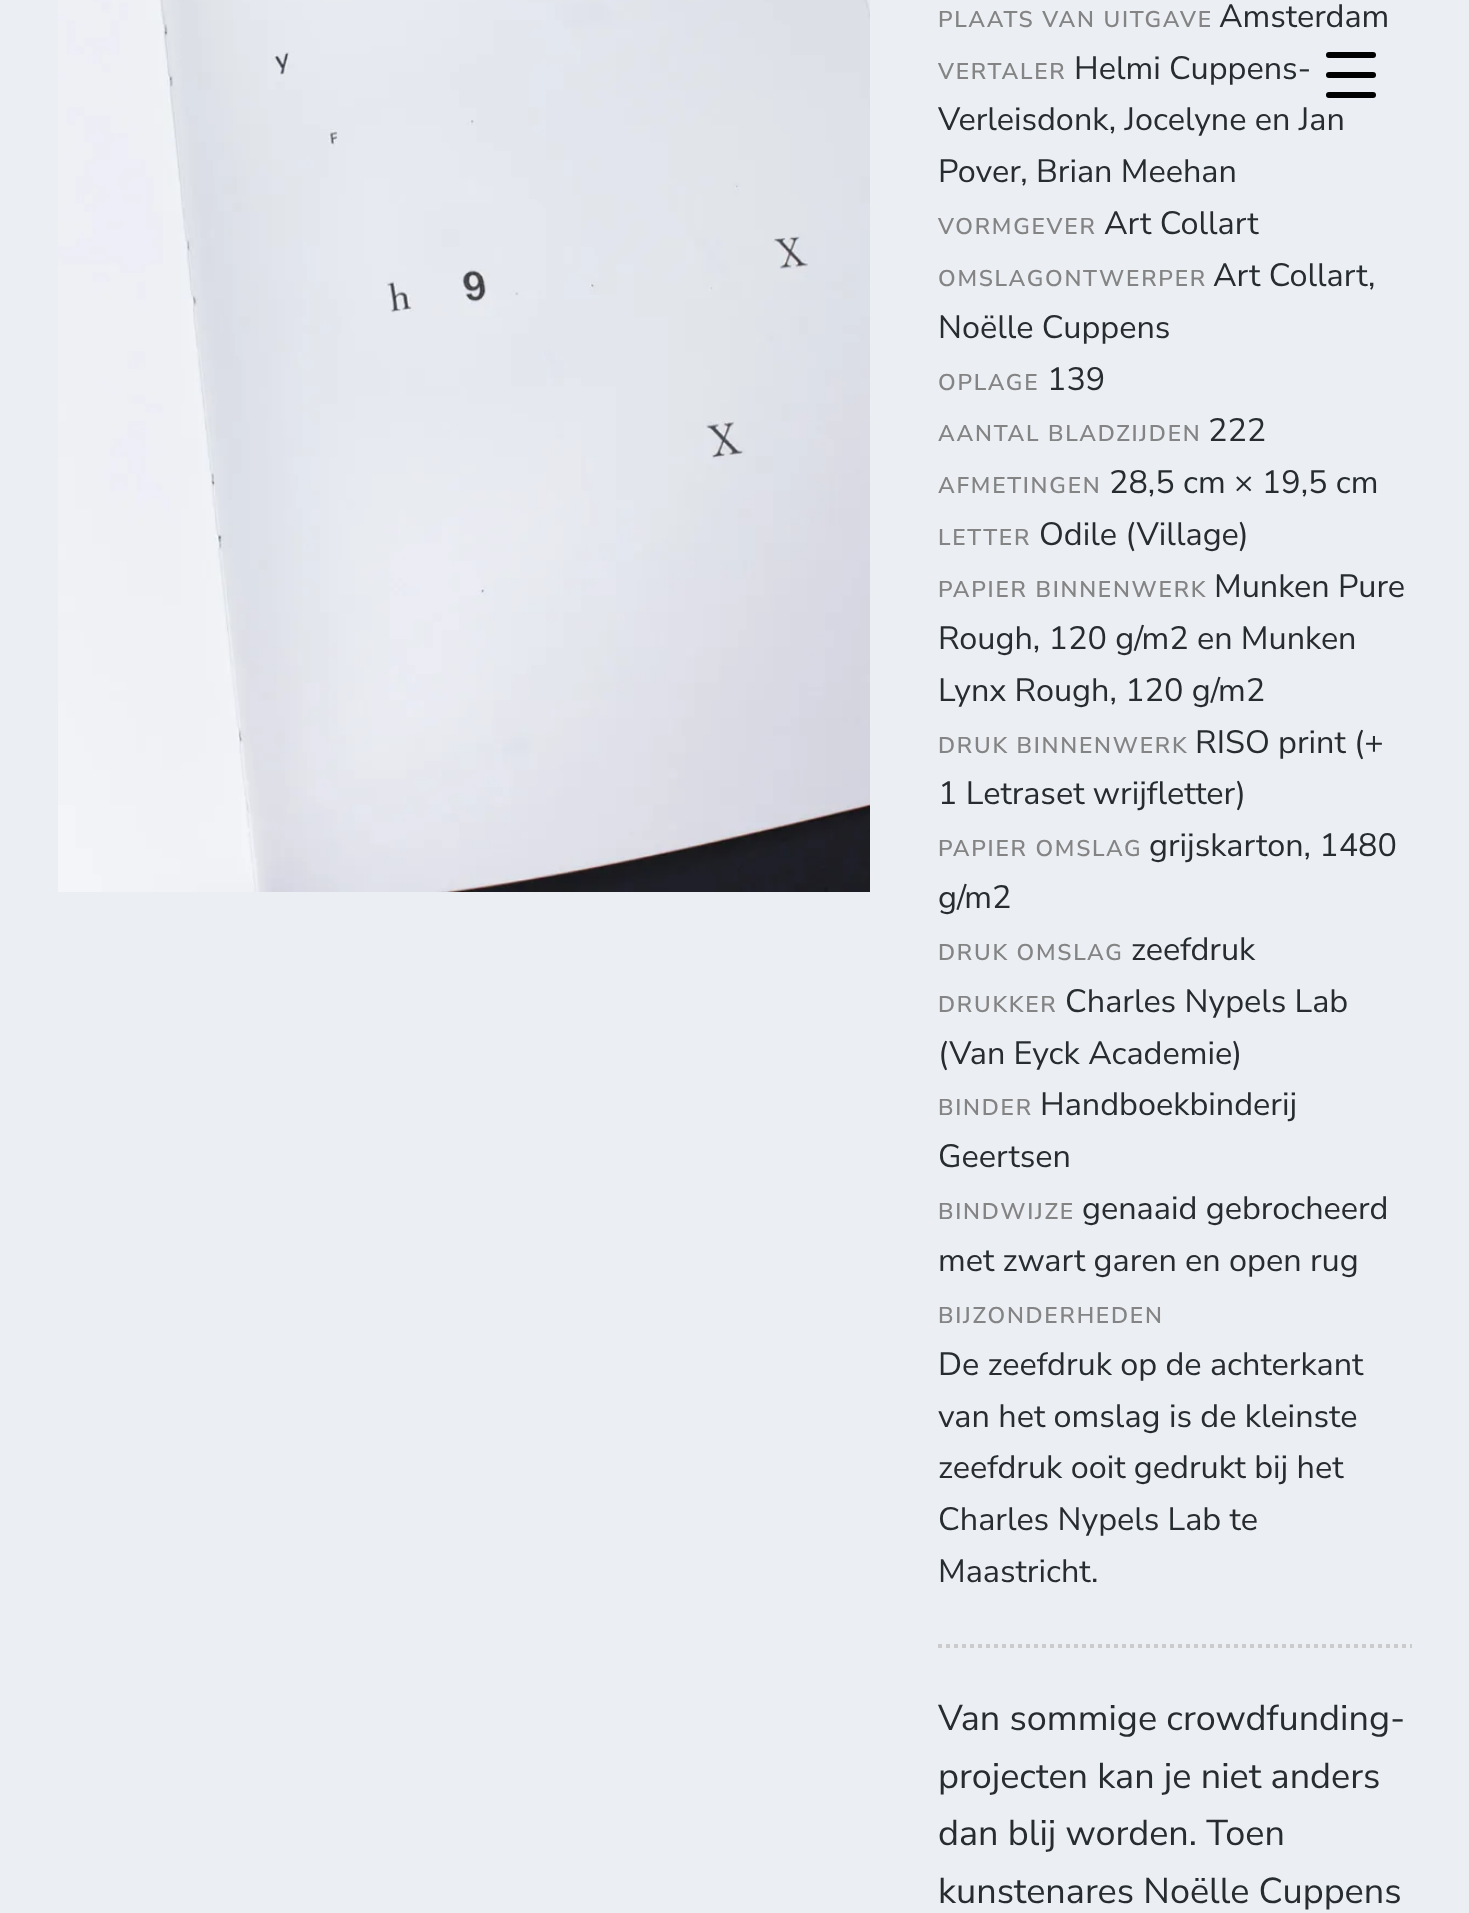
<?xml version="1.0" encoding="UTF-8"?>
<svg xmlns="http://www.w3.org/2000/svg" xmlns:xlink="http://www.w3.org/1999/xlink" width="1469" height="1913">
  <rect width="100%" height="100%" fill="#ebeff4" />
  <image x="58" y="0" width="812" height="892" xlink:href="image1.png" />
  <path d="M 938 1646 h 474" fill="none" stroke="#cbcbcb" stroke-width="4" stroke-dasharray="4 4" />
  <rect x="1326" y="72" width="50" height="6" rx="3" fill="#000000" />
  <rect x="1326" y="52" width="50" height="6" rx="3" fill="#000000" />
  <rect x="1326" y="92" width="50" height="6" rx="3" fill="#000000" />
  <text x="938" y="27" style="font-family: Nunito Sans; font-size: 22.75px; font-weight: 600; letter-spacing: 1.75px; fill: #848484">PLAATS VAN UITGAVE</text>
  <text x="1219" y="27" style="font-family: Nunito Sans; font-size: 32.4px; fill: #272c30">Amsterdam</text>
  <text x="938" y="79" style="font-family: Nunito Sans; font-size: 22.75px; font-weight: 600; letter-spacing: 1.75px; fill: #848484">VERTALER</text>
  <text x="1074" y="79" style="font-family: Nunito Sans; font-size: 32.4px; fill: #272c30">Helmi Cuppens-</text>
  <text x="938" y="130" style="font-family: Nunito Sans; font-size: 32.4px; fill: #272c30">Verleisdonk, Jocelyne en Jan</text>
  <text x="938" y="182" style="font-family: Nunito Sans; font-size: 32.4px; fill: #272c30">Pover, Brian Meehan</text>
  <text x="938" y="234" style="font-family: Nunito Sans; font-size: 22.75px; font-weight: 600; letter-spacing: 1.75px; fill: #848484">VORMGEVER</text>
  <text x="1104" y="234" style="font-family: Nunito Sans; font-size: 32.4px; fill: #272c30">Art Collart</text>
  <text x="938" y="286" style="font-family: Nunito Sans; font-size: 22.75px; font-weight: 600; letter-spacing: 1.75px; fill: #848484">OMSLAGONTWERPER</text>
  <text x="1213" y="286" style="font-family: Nunito Sans; font-size: 32.4px; fill: #272c30">Art Collart,</text>
  <text x="938" y="338" style="font-family: Nunito Sans; font-size: 32.4px; fill: #272c30">Noëlle Cuppens</text>
  <text x="938" y="390" style="font-family: Nunito Sans; font-size: 22.75px; font-weight: 600; letter-spacing: 1.75px; fill: #848484">OPLAGE</text>
  <text x="1047" y="390" style="font-family: Nunito Sans; font-size: 32.4px; fill: #272c30">139</text>
  <text x="938" y="441" style="font-family: Nunito Sans; font-size: 22.75px; font-weight: 600; letter-spacing: 1.75px; fill: #848484">AANTAL BLADZIJDEN</text>
  <text x="1208" y="441" style="font-family: Nunito Sans; font-size: 32.4px; fill: #272c30">222</text>
  <text x="938" y="493" style="font-family: Nunito Sans; font-size: 22.75px; font-weight: 600; letter-spacing: 1.75px; fill: #848484">AFMETINGEN</text>
  <text x="1109" y="493" style="font-family: Nunito Sans; font-size: 32.4px; fill: #272c30">28,5 cm × 19,5 cm</text>
  <text x="938" y="545" style="font-family: Nunito Sans; font-size: 22.75px; font-weight: 600; letter-spacing: 1.75px; fill: #848484">LETTER</text>
  <text x="1039" y="545" style="font-family: Nunito Sans; font-size: 32.4px; fill: #272c30">Odile (Village)</text>
  <text x="938" y="597" style="font-family: Nunito Sans; font-size: 22.75px; font-weight: 600; letter-spacing: 1.75px; fill: #848484">PAPIER BINNENWERK</text>
  <text x="1214" y="597" style="font-family: Nunito Sans; font-size: 32.4px; fill: #272c30">Munken Pure</text>
  <text x="938" y="649" style="font-family: Nunito Sans; font-size: 32.4px; fill: #272c30">Rough, 120 g/m2 en Munken</text>
  <text x="938" y="701" style="font-family: Nunito Sans; font-size: 32.4px; fill: #272c30">Lynx Rough, 120 g/m2</text>
  <text x="938" y="753" style="font-family: Nunito Sans; font-size: 22.75px; font-weight: 600; letter-spacing: 1.75px; fill: #848484">DRUK BINNENWERK</text>
  <text x="1195" y="753" style="font-family: Nunito Sans; font-size: 32.4px; fill: #272c30">RISO print (+</text>
  <text x="938" y="804" style="font-family: Nunito Sans; font-size: 32.4px; fill: #272c30">1 Letraset wrijfletter)</text>
  <text x="938" y="856" style="font-family: Nunito Sans; font-size: 22.75px; font-weight: 600; letter-spacing: 1.75px; fill: #848484">PAPIER OMSLAG</text>
  <text x="1149" y="856" style="font-family: Nunito Sans; font-size: 32.4px; fill: #272c30">grijskarton, 1480</text>
  <text x="938" y="908" style="font-family: Nunito Sans; font-size: 32.4px; fill: #272c30">g/m2</text>
  <text x="938" y="960" style="font-family: Nunito Sans; font-size: 22.75px; font-weight: 600; letter-spacing: 1.75px; fill: #848484">DRUK OMSLAG</text>
  <text x="1131" y="960" style="font-family: Nunito Sans; font-size: 32.4px; fill: #272c30">zeefdruk</text>
  <text x="938" y="1012" style="font-family: Nunito Sans; font-size: 22.75px; font-weight: 600; letter-spacing: 1.75px; fill: #848484">DRUKKER</text>
  <text x="1065" y="1012" style="font-family: Nunito Sans; font-size: 32.4px; fill: #272c30">Charles Nypels Lab</text>
  <text x="938" y="1064" style="font-family: Nunito Sans; font-size: 32.4px; fill: #272c30">(Van Eyck Academie)</text>
  <text x="938" y="1115" style="font-family: Nunito Sans; font-size: 22.75px; font-weight: 600; letter-spacing: 1.75px; fill: #848484">BINDER</text>
  <text x="1040" y="1115" style="font-family: Nunito Sans; font-size: 32.4px; fill: #272c30">Handboekbinderij</text>
  <text x="938" y="1167" style="font-family: Nunito Sans; font-size: 32.4px; fill: #272c30">Geertsen</text>
  <text x="938" y="1219" style="font-family: Nunito Sans; font-size: 22.75px; font-weight: 600; letter-spacing: 1.75px; fill: #848484">BINDWIJZE</text>
  <text x="1082" y="1219" style="font-family: Nunito Sans; font-size: 32.4px; fill: #272c30">genaaid gebrocheerd</text>
  <text x="938" y="1271" style="font-family: Nunito Sans; font-size: 32.4px; fill: #272c30">met zwart garen en open rug</text>
  <text x="938" y="1323" style="font-family: Nunito Sans; font-size: 22.75px; font-weight: 600; letter-spacing: 1.75px; fill: #848484">BIJZONDERHEDEN</text>
  <text x="938" y="1375" style="font-family: Nunito Sans; font-size: 32.4px; fill: #272c30">De zeefdruk op de achterkant</text>
  <text x="938" y="1427" style="font-family: Nunito Sans; font-size: 32.4px; fill: #272c30">van het omslag is de kleinste</text>
  <text x="938" y="1478" style="font-family: Nunito Sans; font-size: 32.4px; fill: #272c30">zeefdruk ooit gedrukt bij het</text>
  <text x="938" y="1530" style="font-family: Nunito Sans; font-size: 32.4px; fill: #272c30">Charles Nypels Lab te</text>
  <text x="938" y="1582" style="font-family: Nunito Sans; font-size: 32.4px; fill: #272c30">Maastricht.</text>
  <text x="938" y="1730" style="font-family: Nunito Sans; font-size: 36px; fill: #272c30">Van sommige crowdfunding-</text>
  <text x="938" y="1788" style="font-family: Nunito Sans; font-size: 36px; fill: #272c30">projecten kan je niet anders</text>
  <text x="938" y="1845" style="font-family: Nunito Sans; font-size: 36px; fill: #272c30">dan blij worden. Toen</text>
  <text x="938" y="1903" style="font-family: Nunito Sans; font-size: 36px; fill: #272c30">kunstenares Noëlle Cuppens</text>
</svg>
